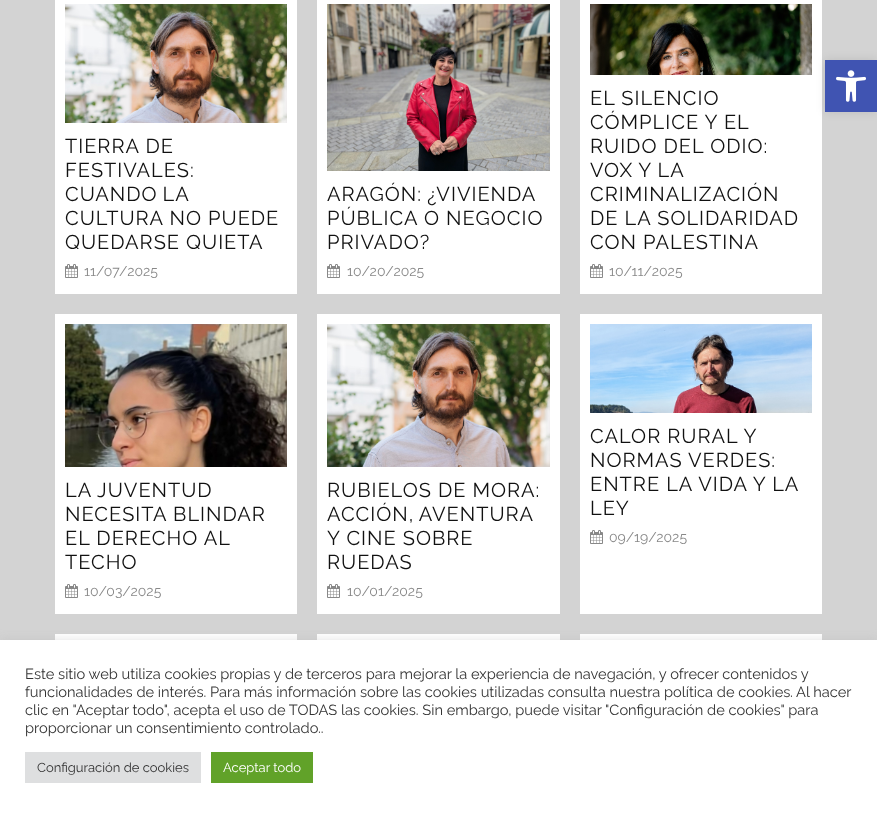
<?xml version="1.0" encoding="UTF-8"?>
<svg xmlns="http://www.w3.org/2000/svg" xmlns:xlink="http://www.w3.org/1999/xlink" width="877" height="813">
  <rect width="100%" height="100%" fill="#d3d3d3" />
  <rect x="55" width="242" height="294" fill="#ffffff" />
  <image x="65" y="4" width="222" height="119" xlink:href="image1.png" />
  <image x="65" y="264" width="13" height="14" xlink:href="image2.png" />
  <rect x="317" width="243" height="294" fill="#ffffff" />
  <image x="327" y="4" width="223" height="167" xlink:href="image3.png" />
  <image x="327" y="264" width="13" height="14" xlink:href="image2.png" />
  <rect x="580" width="242" height="294" fill="#ffffff" />
  <image x="590" y="4" width="222" height="71" xlink:href="image4.png" />
  <image x="590" y="264" width="13" height="14" xlink:href="image2.png" />
  <rect x="55" y="314" width="242" height="300" fill="#ffffff" />
  <image x="65" y="324" width="222" height="143" xlink:href="image5.png" />
  <image x="65" y="584" width="13" height="14" xlink:href="image2.png" />
  <rect x="317" y="314" width="243" height="300" fill="#ffffff" />
  <image x="327" y="324" width="223" height="143" xlink:href="image6.png" />
  <image x="327" y="584" width="13" height="14" xlink:href="image2.png" />
  <rect x="580" y="314" width="242" height="300" fill="#ffffff" />
  <image x="590" y="324" width="222" height="89" xlink:href="image7.png" />
  <image x="590" y="530" width="13" height="14" xlink:href="image2.png" />
  <rect x="55" y="634" width="242" height="6" fill="#ffffff" />
  <rect x="317" y="634" width="243" height="6" fill="#ffffff" />
  <rect x="580" y="634" width="242" height="6" fill="#ffffff" />
  <rect x="825" y="60" width="52" height="52" fill="#000000" fill-opacity="0.1" filter="blur(5px)" />
  <rect x="825" y="60" width="52" height="52" fill="#4054b2" />
  <image x="836" y="70" width="30" height="32" xlink:href="image8.png" />
  <rect y="639" width="877" height="173" fill="#acabab" fill-opacity="0.3" filter="blur(5px)" />
  <rect y="640" width="877" height="173" fill="#ffffff" />
  <rect x="25" y="752" width="176" height="31" fill="#dedfe0" />
  <rect x="211" y="752" width="102" height="31" fill="#61a229" />
  <text x="65" y="153" style="font-family: Raleway; font-size: 20px; letter-spacing: 1px; fill: #111111">TIERRA DE</text>
  <text x="65" y="177" style="font-family: Raleway; font-size: 20px; letter-spacing: 1px; fill: #111111">FESTIVALES:</text>
  <text x="65" y="201" word-spacing="-1" style="font-family: Raleway; font-size: 20px; letter-spacing: 1px; fill: #111111">CUANDO LA</text>
  <text x="65" y="225" style="font-family: Raleway; font-size: 20px; letter-spacing: 1px; fill: #111111">CULTURA NO PUEDE</text>
  <text x="65" y="249" style="font-family: Raleway; font-size: 20px; letter-spacing: 1px; fill: #111111">QUEDARSE QUIETA</text>
  <text x="84" y="276" style="font-family: Raleway; font-size: 14px; fill: #888888">11/07/2025</text>
  <text x="327" y="201" word-spacing="-1" style="font-family: Raleway; font-size: 20px; letter-spacing: 1px; fill: #111111">ARAGÓN: ¿VIVIENDA</text>
  <text x="327" y="225" style="font-family: Raleway; font-size: 20px; letter-spacing: 1px; fill: #111111">PÚBLICA O NEGOCIO</text>
  <text x="327" y="249" style="font-family: Raleway; font-size: 20px; letter-spacing: 1px; fill: #111111">PRIVADO?</text>
  <text x="347" y="276" style="font-family: Raleway; font-size: 14px; fill: #888888">10/20/2025</text>
  <text x="590" y="105" style="font-family: Raleway; font-size: 20px; letter-spacing: 1px; fill: #111111">EL SILENCIO</text>
  <text x="590" y="129" style="font-family: Raleway; font-size: 20px; letter-spacing: 1px; fill: #111111">CÓMPLICE Y EL</text>
  <text x="590" y="153" style="font-family: Raleway; font-size: 20px; letter-spacing: 1px; fill: #111111">RUIDO DEL ODIO:</text>
  <text x="590" y="177" style="font-family: Raleway; font-size: 20px; letter-spacing: 1px; fill: #111111">VOX Y LA</text>
  <text x="590" y="201" style="font-family: Raleway; font-size: 20px; letter-spacing: 1px; fill: #111111">CRIMINALIZACIÓN</text>
  <text x="590" y="225" style="font-family: Raleway; font-size: 20px; letter-spacing: 1px; fill: #111111">DE LA SOLIDARIDAD</text>
  <text x="590" y="249" style="font-family: Raleway; font-size: 20px; letter-spacing: 1px; fill: #111111">CON PALESTINA</text>
  <text x="609" y="276" style="font-family: Raleway; font-size: 14px; fill: #888888">10/11/2025</text>
  <text x="65" y="497" style="font-family: Raleway; font-size: 20px; letter-spacing: 1px; fill: #111111">LA JUVENTUD</text>
  <text x="65" y="521" style="font-family: Raleway; font-size: 20px; letter-spacing: 1px; fill: #111111">NECESITA BLINDAR</text>
  <text x="65" y="545" style="font-family: Raleway; font-size: 20px; letter-spacing: 1px; fill: #111111">EL DERECHO AL</text>
  <text x="65" y="569" style="font-family: Raleway; font-size: 20px; letter-spacing: 1px; fill: #111111">TECHO</text>
  <text x="84" y="596" style="font-family: Raleway; font-size: 14px; fill: #888888">10/03/2025</text>
  <text x="327" y="497" style="font-family: Raleway; font-size: 20px; letter-spacing: 1px; fill: #111111">RUBIELOS DE MORA:</text>
  <text x="327" y="521" word-spacing="-1" style="font-family: Raleway; font-size: 20px; letter-spacing: 1px; fill: #111111">ACCIÓN, AVENTURA</text>
  <text x="327" y="545" style="font-family: Raleway; font-size: 20px; letter-spacing: 1px; fill: #111111">Y CINE SOBRE</text>
  <text x="327" y="569" style="font-family: Raleway; font-size: 20px; letter-spacing: 1px; fill: #111111">RUEDAS</text>
  <text x="347" y="596" style="font-family: Raleway; font-size: 14px; fill: #888888">10/01/2025</text>
  <text x="590" y="443" style="font-family: Raleway; font-size: 20px; letter-spacing: 1px; fill: #111111">CALOR RURAL Y</text>
  <text x="590" y="467" style="font-family: Raleway; font-size: 20px; letter-spacing: 1px; fill: #111111">NORMAS VERDES:</text>
  <text x="590" y="491" style="font-family: Raleway; font-size: 20px; letter-spacing: 1px; fill: #111111">ENTRE LA VIDA Y LA</text>
  <text x="590" y="515" style="font-family: Raleway; font-size: 20px; letter-spacing: 1px; fill: #111111">LEY</text>
  <text x="609" y="542" style="font-family: Raleway; font-size: 14px; fill: #888888">09/19/2025</text>
  <text x="25" y="679" style="font-family: Raleway; font-size: 14.67px; fill: #333333">Este sitio web utiliza cookies propias y de terceros para mejorar la experiencia de navegación, y ofrecer contenidos y</text>
  <text x="25" y="697" style="font-family: Raleway; font-size: 14.67px; fill: #333333">funcionalidades de interés. Para más información sobre las cookies utilizadas consulta nuestra</text>
  <text x="664" y="697" style="font-family: Raleway; font-size: 14.67px; fill: #333333">política de cookies</text>
  <text x="790" y="697" style="font-family: Raleway; font-size: 14.67px; fill: #333333">. Al hacer</text>
  <text x="25" y="715" style="font-family: Raleway; font-size: 14.67px; fill: #333333">clic en "Aceptar todo", acepta el uso de TODAS las cookies. Sin embargo, puede visitar "Configuración de cookies" para</text>
  <text x="25" y="733" style="font-family: Raleway; font-size: 14.67px; fill: #333333">proporcionar un consentimiento controlado..</text>
  <text x="37" y="772" style="font-family: Raleway; font-size: 13px; fill: #333333">Configuración de cookies</text>
  <text x="223" y="772" style="font-family: Raleway; font-size: 13px; fill: #ffffff">Aceptar todo</text>
</svg>
